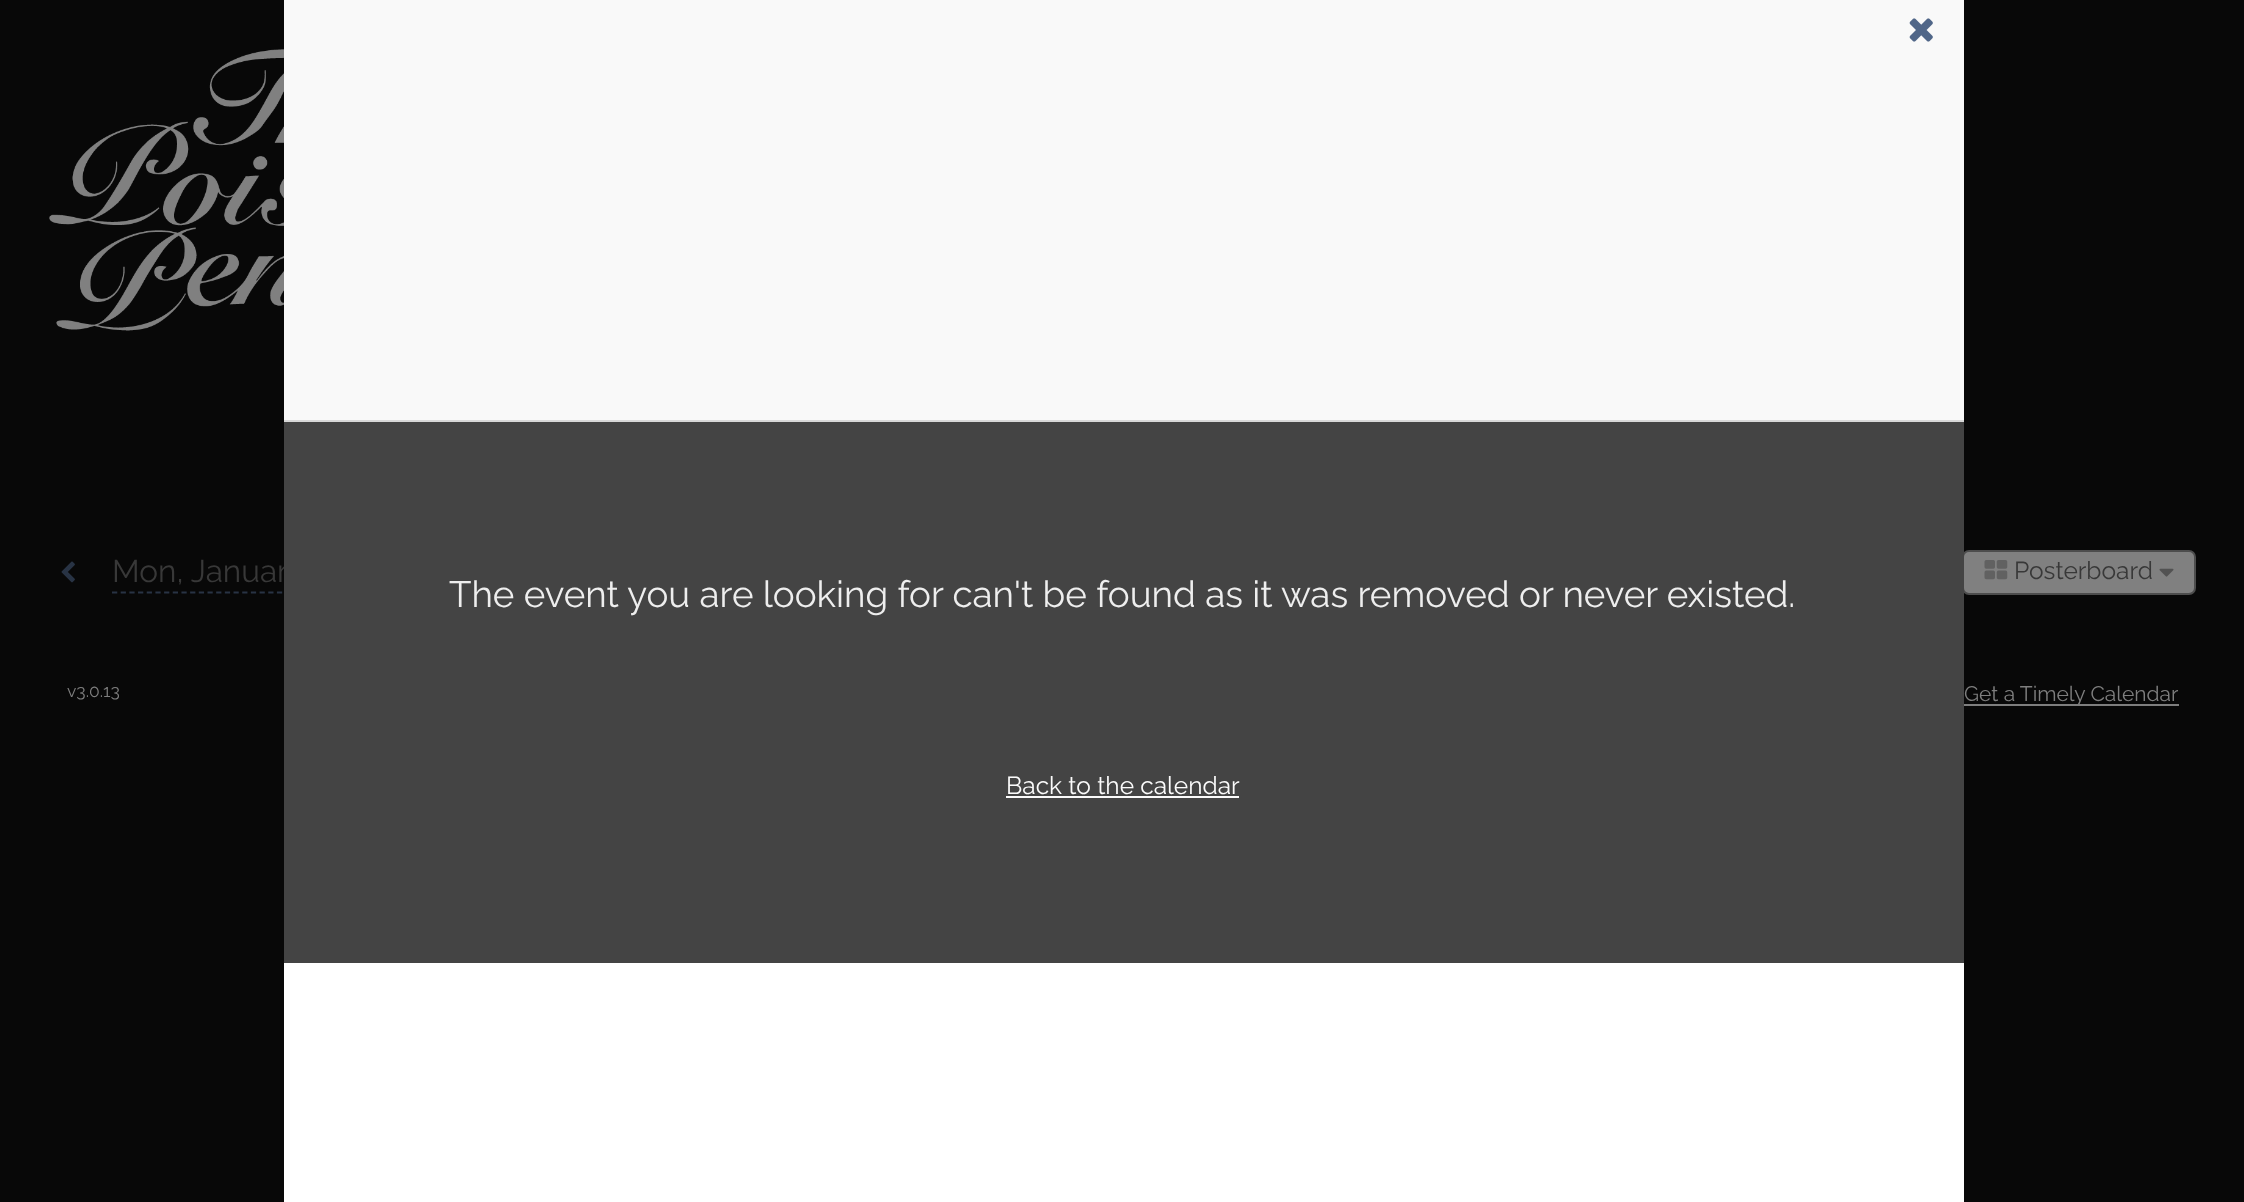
<?xml version="1.0" encoding="UTF-8"?>
<svg xmlns="http://www.w3.org/2000/svg" xmlns:xlink="http://www.w3.org/1999/xlink" width="2244" height="1202">
  <rect width="100%" height="100%" fill="#080808" />
  <image x="49" y="49" width="235" height="282" xlink:href="image1.png" />
  <image x="61" y="561" width="14" height="22" xlink:href="image2.png" />
  <path d="M 112 592.5 h 231" fill="none" stroke="#283344" stroke-width="1.8" stroke-dasharray="5.25 3.43" />
  <rect x="1963" y="551" width="232" height="43" rx="6" fill="#808080" stroke="#4d4d4d" stroke-width="2" />
  <image x="1984" y="560" width="24" height="20" xlink:href="image3.png" />
  <image x="2159" y="568" width="15" height="9" xlink:href="image4.png" />
  <rect x="1958" y="704" width="221" height="2" fill="#7e7e7e" />
  <rect x="284" y="963" width="1680" height="239" fill="#ffffff" />
  <rect x="284" width="1680" height="420" fill="#f9f9f9" />
  <image x="1909" y="18" width="24" height="24" xlink:href="image5.png" />
  <rect x="284" y="420" width="1680" height="2" fill="#d8d8d8" />
  <text x="112" y="582" style="font-family: Raleway; font-size: 31.5px; font-weight: 100; fill: #383838">Mon, Januar</text>
  <text x="2014" y="579" style="font-family: Raleway; font-size: 24.5px; font-weight: 100; fill: #383838">Posterboard</text>
  <text x="67" y="697" style="font-family: Raleway; font-size: 17.5px; font-weight: 100; fill: #7e7e7e">v3.0.13</text>
  <text x="1964" y="701" style="font-family: Raleway; font-size: 21px; font-weight: 100; fill: #7e7e7e">Get a Timely Calendar</text>
  <rect x="284" y="422" width="1680" height="541" fill="#444444" />
  <text x="449" y="607" style="font-family: Raleway; font-size: 36.75px; font-weight: 100; fill: #eeeeee">The event you are looking for can't be found as it was removed or never existed.</text>
  <text x="1006" y="794" style="font-family: Raleway; font-size: 24.5px; font-weight: 100; fill: #fbfbfb">Back to the calendar</text>
  <rect x="1006" y="796" width="233" height="2" fill="#fbfbfb" />
</svg>
